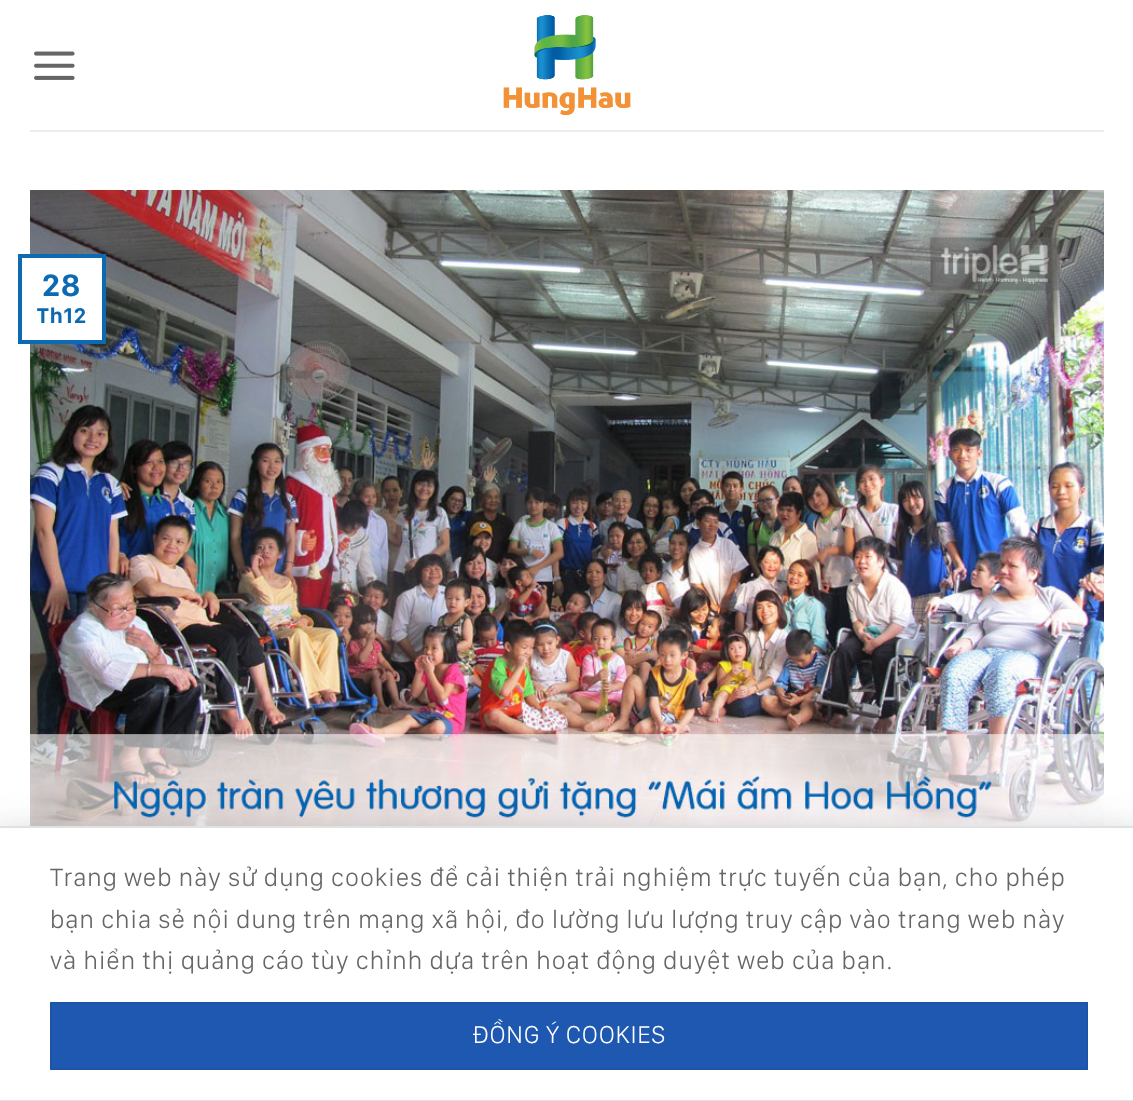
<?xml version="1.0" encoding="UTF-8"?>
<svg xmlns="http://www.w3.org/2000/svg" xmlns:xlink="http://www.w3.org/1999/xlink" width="1133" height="1101">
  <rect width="100%" height="100%" fill="#ffffff" />
  <image x="34" y="51" width="41" height="29" xlink:href="image1.png" />
  <image x="503" y="15" width="128" height="101" xlink:href="image2.png" />
  <rect x="30" y="130" width="1074" height="2" fill="#ededed" />
  <image x="30" y="190" width="1074" height="636" xlink:href="image3.png" />
  <rect x="30" y="258" width="72" height="82" fill="#ffffff" />
  <rect x="20" y="256" width="84" height="86" fill="none" stroke="#0b6ab2" stroke-width="4" />
  <rect x="-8" y="838" width="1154" height="252" fill="#242f42" fill-opacity="0.31" filter="blur(20px)" />
  <rect x="-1" y="827" width="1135" height="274" fill="#ffffff" stroke="#e1e1e1" stroke-width="2" />
  <rect x="51" y="1003" width="1036" height="66" fill="#1e58b1" stroke="#1d54a8" stroke-width="2" />
  <text x="42" y="296" style="font-family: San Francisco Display; font-size: 32px; font-weight: bold; letter-spacing: 1px; fill: #0b6ab2">28</text>
  <text x="37" y="323" style="font-family: San Francisco Display; font-size: 22px; font-weight: bold; letter-spacing: 1px; fill: #0b6ab2">Th12</text>
  <text x="50" y="886" style="font-family: San Francisco Display; font-size: 26px; font-weight: 300; letter-spacing: 1px; fill: #666666">Trang web này sử dụng cookies để cải thiện trải nghiệm trực tuyến của bạn, cho phép</text>
  <text x="50" y="928" style="font-family: San Francisco Display; font-size: 26px; font-weight: 300; letter-spacing: 1px; fill: #666666">bạn chia sẻ nội dung trên mạng xã hội, đo lường lưu lượng truy cập vào trang web này</text>
  <text x="50" y="969" style="font-family: San Francisco Display; font-size: 26px; font-weight: 300; letter-spacing: 1px; fill: #666666">và hiển thị quảng cáo tùy chỉnh dựa trên hoạt động duyệt web của bạn.</text>
  <text x="472" y="1043" style="font-family: San Francisco Display; font-size: 25.25px; font-weight: 300; letter-spacing: 0.75px; fill: #ffffff">ĐỒNG Ý COOKIES</text>
</svg>
